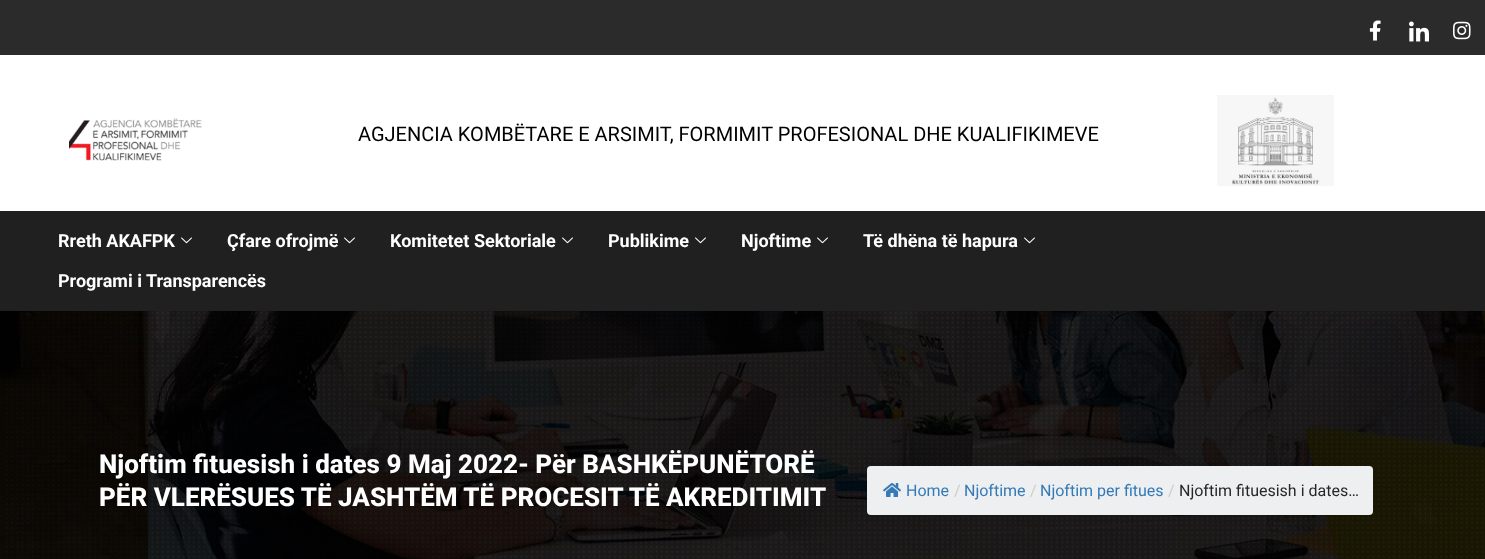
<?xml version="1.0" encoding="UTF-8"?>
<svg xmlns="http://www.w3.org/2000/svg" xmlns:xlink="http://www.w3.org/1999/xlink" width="1485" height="559">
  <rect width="100%" height="100%" fill="#ffffff" />
  <rect width="1485" height="55" fill="#2c2b2b" />
  <image x="1369" y="20" width="12" height="21" xlink:href="image1.png" />
  <image x="1409" y="21" width="20" height="21" xlink:href="image2.png" />
  <image x="1453" y="21" width="18" height="19" xlink:href="image3.png" />
  <image x="69" y="118" width="133" height="43" xlink:href="image4.png" />
  <image x="1217" y="95" width="117" height="91" xlink:href="image5.png" />
  <rect y="211" width="1485" height="100" fill="#212020" />
  <image x="181" y="237" width="11" height="7" xlink:href="image6.png" />
  <image x="344" y="237" width="11" height="7" xlink:href="image6.png" />
  <image x="562" y="237" width="11" height="7" xlink:href="image6.png" />
  <image x="695" y="237" width="11" height="7" xlink:href="image6.png" />
  <image x="817" y="237" width="11" height="7" xlink:href="image6.png" />
  <image x="1024" y="237" width="11" height="7" xlink:href="image6.png" />
  <image x="0" y="311" width="1485" height="248" xlink:href="image7.png" />
  <rect x="867" y="466" width="506" height="49" rx="4" fill="#edeff0" />
  <image x="883" y="483" width="18" height="14" xlink:href="image8.png" />
  <text x="358" y="141" style="font-family: Roboto; font-size: 20px; fill: #000000">AGJENCIA KOMBËTARE E ARSIMIT, FORMIMIT PROFESIONAL DHE KUALIFIKIMEVE</text>
  <text x="58" y="247" style="font-family: Roboto; font-size: 18px; font-weight: bold; fill: #ffffff">Rreth AKAFPK</text>
  <text x="227" y="247" style="font-family: Roboto; font-size: 18px; font-weight: bold; fill: #ffffff">Çfare ofrojmë</text>
  <text x="390" y="247" style="font-family: Roboto; font-size: 18px; font-weight: bold; fill: #ffffff">Komitetet Sektoriale</text>
  <text x="608" y="247" style="font-family: Roboto; font-size: 18px; font-weight: bold; fill: #ffffff">Publikime</text>
  <text x="741" y="247" style="font-family: Roboto; font-size: 18px; font-weight: bold; fill: #ffffff">Njoftime</text>
  <text x="863" y="247" style="font-family: Roboto; font-size: 18px; font-weight: bold; fill: #ffffff">Të dhëna të hapura</text>
  <text x="58" y="287" style="font-family: Roboto; font-size: 18px; font-weight: bold; fill: #ffffff">Programi i Transparencës</text>
  <text x="99" y="473" style="font-family: Roboto; font-size: 26px; font-weight: 800; fill: #ffffff">Njoftim fituesish i dates 9 Maj 2022- Për BASHKËPUNËTORË</text>
  <text x="99" y="506" style="font-family: Roboto; font-size: 26px; font-weight: 800; fill: #ffffff">PËR VLERËSUES TË JASHTËM TË PROCESIT TË AKREDITIMIT</text>
  <text x="906" y="496" style="font-family: Roboto; font-size: 16px; fill: #337ab7">Home</text>
  <text x="954" y="496" style="font-family: Roboto; font-size: 16px; fill: #cccccc">/</text>
  <text x="964" y="496" style="font-family: Roboto; font-size: 16px; fill: #337ab7">Njoftime</text>
  <text x="1030" y="496" style="font-family: Roboto; font-size: 16px; fill: #cccccc">/</text>
  <text x="1040" y="496" style="font-family: Roboto; font-size: 16px; fill: #337ab7">Njoftim per fitues</text>
  <text x="1168" y="496" style="font-family: Roboto; font-size: 16px; fill: #cccccc">/</text>
  <text x="1179" y="496" style="font-family: Roboto; font-size: 16px; fill: #27272a">Njoftim fituesish i dates…</text>
</svg>
